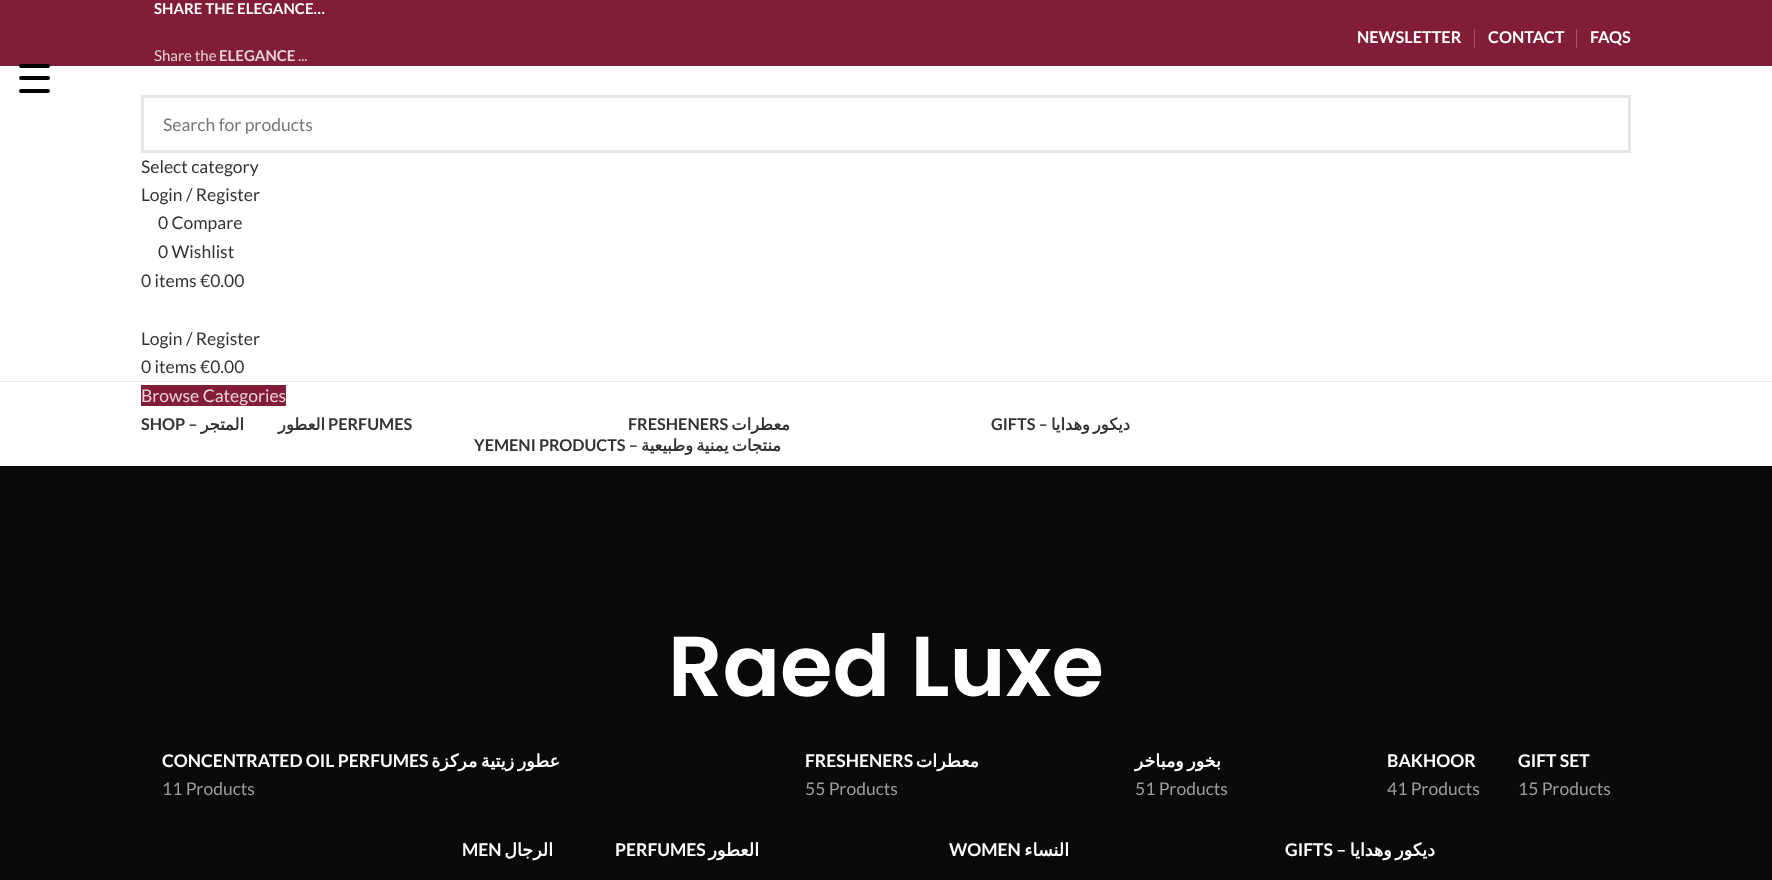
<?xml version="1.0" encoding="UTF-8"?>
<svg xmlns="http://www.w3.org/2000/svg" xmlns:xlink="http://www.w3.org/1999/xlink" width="1772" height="880">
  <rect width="100%" height="100%" fill="#ffffff" />
  <rect x="19" y="76" width="31" height="4" rx="2" fill="#000000" />
  <rect width="1772" height="66" fill="#821d38" />
  <rect x="19" y="64" width="31" height="4" rx="2" fill="#000000" />
  <rect x="19" y="89" width="31" height="4" rx="2" fill="#000000" />
  <rect x="1474" y="29" width="1" height="19" fill="#a1566a" />
  <rect x="1576" y="29" width="1" height="19" fill="#a1566a" />
  <rect y="381" width="1772" height="1" fill="#e8e8e8" />
  <rect x="142.5" y="96.5" width="1487" height="55" fill="none" stroke="#e6e6e6" stroke-width="3" />
  <rect x="141" y="385" width="145" height="21" fill="#821d38" />
  <rect y="466" width="1772" height="414" fill="#0a0a0a" />
  <text x="154" y="14" style="font-family: Lato; font-size: 15px; font-weight: bold; fill: #ffffff">SHARE THE ELEGANCE…</text>
  <text x="1357" y="43" style="font-family: Lato; font-size: 16.25px; font-weight: bold; fill: #ffffff">NEWSLETTER</text>
  <text x="1488" y="43" style="font-family: Lato; font-size: 16.25px; font-weight: bold; fill: #ffffff">CONTACT</text>
  <text x="1590" y="43" style="font-family: Lato; font-size: 16.25px; font-weight: bold; fill: #ffffff">FAQS</text>
  <text x="154" y="61" style="font-family: Lato; font-size: 15px; fill: #e6d2d7">Share the</text>
  <text x="219" y="61" style="font-family: Lato; font-size: 15px; font-weight: bold; fill: #e6d2d7">ELEGANCE</text>
  <text x="298" y="61" style="font-family: Lato; font-size: 15px; fill: #e6d2d7">...</text>
  <text x="163" y="131" style="font-family: Lato; font-size: 17.5px; fill: #767676">Search for products</text>
  <text x="141" y="173" style="font-family: Lato; font-size: 17.5px; fill: #333333">Select category</text>
  <text x="141" y="201" style="font-family: Lato; font-size: 17.5px; fill: #333333">Login / Register</text>
  <text x="158" y="229" style="font-family: Lato; font-size: 17.5px; fill: #333333">0 Compare</text>
  <text x="158" y="258" style="font-family: Lato; font-size: 17.5px; fill: #333333">0 Wishlist</text>
  <text x="141" y="287" style="font-family: Lato; font-size: 17.5px; fill: #333333">0 items €0.00</text>
  <text x="141" y="345" style="font-family: Lato; font-size: 17.5px; fill: #333333">Login / Register</text>
  <text x="141" y="373" style="font-family: Lato; font-size: 17.5px; fill: #333333">0 items €0.00</text>
  <text x="141" y="402" style="font-family: Lato; font-size: 17.5px; fill: #e6d2d7">Browse Categories</text>
  <text x="141" y="430" style="font-family: Lato; font-size: 16.25px; font-weight: bold; fill: #333333">SHOP –</text>
  <text x="244" y="430" style="font-family: DejaVu Sans; font-size: 16.25px; font-weight: bold; direction: rtl; fill: #333333">المتجر</text>
  <text x="325" y="430" style="font-family: DejaVu Sans; font-size: 16.25px; font-weight: bold; direction: rtl; fill: #333333">العطور</text>
  <text x="328" y="430" style="font-family: Lato; font-size: 16.25px; font-weight: bold; fill: #333333">PERFUMES</text>
  <text x="628" y="430" style="font-family: Lato; font-size: 16.25px; font-weight: bold; fill: #333333">FRESHENERS</text>
  <text x="790" y="430" style="font-family: DejaVu Sans; font-size: 16.25px; font-weight: bold; direction: rtl; fill: #333333">معطرات</text>
  <text x="991" y="430" style="font-family: Lato; font-size: 16.25px; font-weight: bold; fill: #333333">GIFTS –</text>
  <text x="1130" y="430" word-spacing="-2" style="font-family: DejaVu Sans; font-size: 16.25px; font-weight: bold; direction: rtl; fill: #333333">ديكور وهدايا</text>
  <text x="474" y="451" style="font-family: Lato; font-size: 16.25px; font-weight: bold; fill: #333333">YEMENI PRODUCTS –</text>
  <text x="781" y="451" word-spacing="-2" style="font-family: DejaVu Sans; font-size: 16.25px; font-weight: bold; direction: rtl; fill: #333333">منتجات يمنية وطبيعية</text>
  <text x="668" y="696" style="font-family: Poppins; font-size: 85px; font-weight: 600; fill: #ffffff">Raed Luxe</text>
  <text x="162" y="767" style="font-family: Lato; font-size: 17.5px; font-weight: bold; fill: #ffffff">CONCENTRATED OIL PERFUMES</text>
  <text x="560" y="767" word-spacing="-2" style="font-family: DejaVu Sans; font-size: 17.5px; font-weight: bold; direction: rtl; fill: #ffffff">عطور زيتية مركزة</text>
  <text x="162" y="795" style="font-family: Lato; font-size: 17.5px; fill: #9d9d9d">11 Products</text>
  <text x="805" y="767" style="font-family: Lato; font-size: 17.5px; font-weight: bold; fill: #ffffff">FRESHENERS</text>
  <text x="979" y="767" style="font-family: DejaVu Sans; font-size: 17.5px; font-weight: bold; direction: rtl; fill: #ffffff">معطرات</text>
  <text x="805" y="795" style="font-family: Lato; font-size: 17.5px; fill: #9d9d9d">55 Products</text>
  <text x="1221" y="767" word-spacing="-2" style="font-family: DejaVu Sans; font-size: 17.5px; font-weight: bold; direction: rtl; fill: #ffffff">بخور ومباخر</text>
  <text x="1135" y="795" style="font-family: Lato; font-size: 17.5px; fill: #9d9d9d">51 Products</text>
  <text x="1387" y="767" style="font-family: Lato; font-size: 17.5px; font-weight: bold; fill: #ffffff">BAKHOOR</text>
  <text x="1387" y="795" style="font-family: Lato; font-size: 17.5px; fill: #9d9d9d">41 Products</text>
  <text x="1518" y="767" style="font-family: Lato; font-size: 17.5px; font-weight: bold; fill: #ffffff">GIFT SET</text>
  <text x="1518" y="795" style="font-family: Lato; font-size: 17.5px; fill: #9d9d9d">15 Products</text>
  <text x="462" y="856" style="font-family: Lato; font-size: 17.5px; font-weight: bold; fill: #ffffff">MEN</text>
  <text x="553" y="856" style="font-family: DejaVu Sans; font-size: 17.5px; font-weight: bold; direction: rtl; fill: #ffffff">الرجال</text>
  <text x="615" y="856" style="font-family: Lato; font-size: 17.5px; font-weight: bold; fill: #ffffff">PERFUMES</text>
  <text x="759" y="856" style="font-family: DejaVu Sans; font-size: 17.5px; font-weight: bold; direction: rtl; fill: #ffffff">العطور</text>
  <text x="949" y="856" style="font-family: Lato; font-size: 17.5px; font-weight: bold; fill: #ffffff">WOMEN</text>
  <text x="1069" y="856" style="font-family: DejaVu Sans; font-size: 17.5px; font-weight: bold; direction: rtl; fill: #ffffff">النساء</text>
  <text x="1285" y="856" style="font-family: Lato; font-size: 17.5px; font-weight: bold; fill: #ffffff">GIFTS –</text>
  <text x="1435" y="856" word-spacing="-2" style="font-family: DejaVu Sans; font-size: 17.5px; font-weight: bold; direction: rtl; fill: #ffffff">ديكور وهدايا</text>
</svg>
